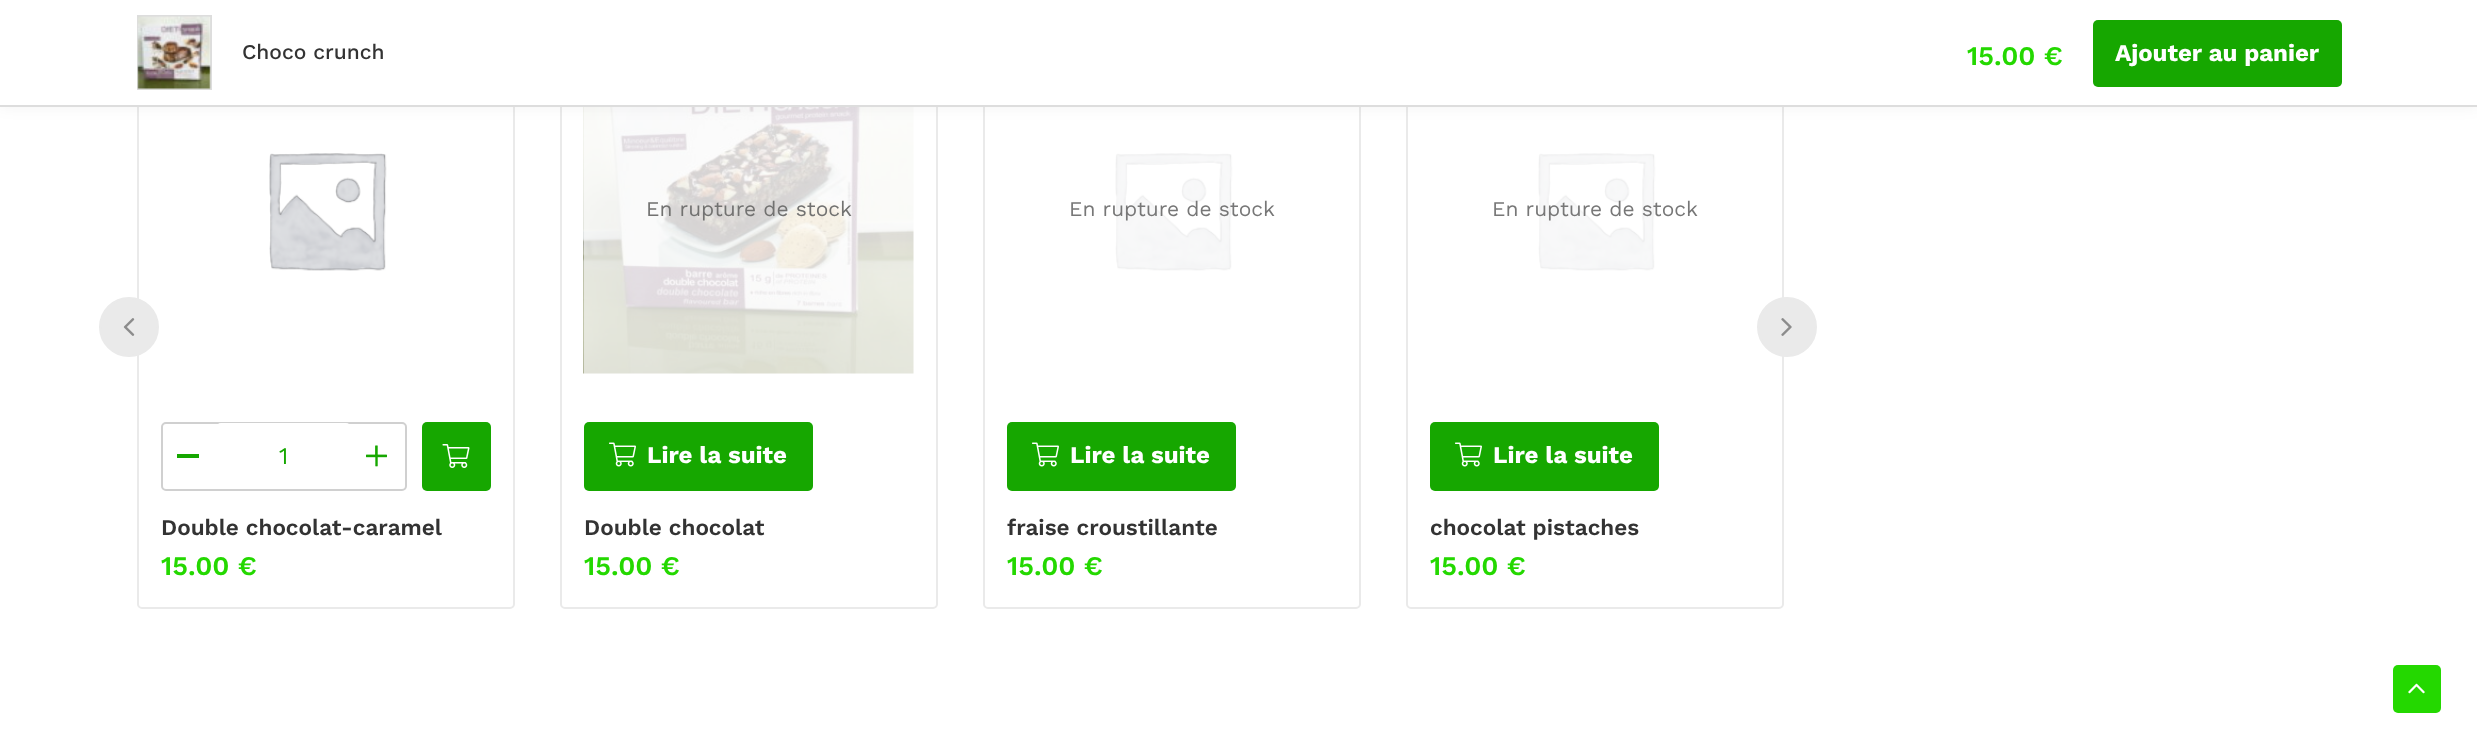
<?xml version="1.0" encoding="UTF-8"?>
<svg xmlns="http://www.w3.org/2000/svg" xmlns:xlink="http://www.w3.org/1999/xlink" width="2477" height="750">
  <rect width="100%" height="100%" fill="#ffffff" />
  <rect x="138" y="15" width="376" height="593" rx="4" fill="none" stroke="#eaeaea" stroke-width="2" />
  <rect x="561" y="15" width="376" height="593" rx="4" fill="none" stroke="#eaeaea" stroke-width="2" />
  <image x="583" y="107" width="331" height="267" xlink:href="image6.png" />
  <rect x="984" y="15" width="376" height="593" rx="4" fill="none" stroke="#eaeaea" stroke-width="2" />
  <rect x="1407" y="15" width="376" height="593" rx="4" fill="none" stroke="#eaeaea" stroke-width="2" />
  <rect width="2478" height="107" fill="#000000" fill-opacity="0.05" filter="blur(7.5px)" />
  <rect width="2477" height="105" fill="#ffffff" />
  <rect y="105" width="2477" height="2" fill="#dddddd" />
  <rect x="138" y="16" width="73" height="73" fill="none" stroke="#dddddd" stroke-width="2" />
  <image x="137" y="16" width="74" height="74" xlink:href="image1.png" />
  <rect x="2093" y="20" width="249" height="67" rx="5" fill="#16a700" />
  <circle cx="129" cy="327" r="29" fill="#eaeaea" stroke="#eaeaea" stroke-width="2" />
  <image x="123" y="318" width="12" height="18" xlink:href="image2.png" />
  <image x="269" y="153" width="118" height="118" xlink:href="image3.png" />
  <rect x="162" y="423" width="244" height="67" rx="4" fill="none" stroke="#d0d0d0" stroke-width="2" />
  <rect x="177" y="454" width="22" height="4" fill="#16a700" />
  <rect x="216" y="423" width="135" height="66" rx="5" fill="#ffffff" />
  <image x="366" y="445" width="21" height="22" xlink:href="image4.png" />
  <rect x="422" y="422" width="69" height="69" rx="5" fill="#16a700" />
  <image x="442" y="444" width="28" height="24" xlink:href="image5.png" />
  <rect x="584" y="422" width="229" height="69" rx="5" fill="#16a700" />
  <image x="609" y="442" width="27" height="25" xlink:href="image7.png" />
  <image x="1115" y="153" width="118" height="118" xlink:href="image8.png" />
  <rect x="1007" y="422" width="229" height="69" rx="5" fill="#16a700" />
  <image x="1032" y="442" width="27" height="25" xlink:href="image7.png" />
  <image x="1538" y="153" width="118" height="118" xlink:href="image9.png" />
  <rect x="1430" y="422" width="229" height="69" rx="5" fill="#16a700" />
  <image x="1455" y="442" width="27" height="25" xlink:href="image7.png" />
  <circle cx="1787" cy="327" r="29" fill="#eaeaea" stroke="#eaeaea" stroke-width="2" />
  <image x="1781" y="318" width="11" height="18" xlink:href="image10.png" />
  <rect x="2393" y="665" width="48" height="48" rx="5" fill="#24d800" />
  <image x="2408" y="683" width="17" height="11" xlink:href="image11.png" />
  <text x="242" y="59" style="font-family: Work Sans; font-size: 21px; font-weight: 500; fill: #333333">Choco crunch</text>
  <text x="1967" y="65" style="font-family: Work Sans; font-size: 27px; font-weight: 600; fill: #24d800">15.00 €</text>
  <text x="2115" y="61" style="font-family: Work Sans; font-size: 24px; font-weight: bold; fill: #ffffff">Ajouter au panier</text>
  <text x="279" y="464" style="font-family: Work Sans; font-size: 24px; fill: #16a700">1</text>
  <text x="161" y="535" style="font-family: Work Sans; font-size: 22.5px; font-weight: 600; fill: #333333">Double chocolat-caramel</text>
  <text x="161" y="575" style="font-family: Work Sans; font-size: 27px; font-weight: 600; fill: #24d800">15.00 €</text>
  <text x="646" y="216" style="font-family: Work Sans; font-size: 21px; fill: #727271">En rupture de stock</text>
  <text x="647" y="463" style="font-family: Work Sans; font-size: 24px; font-weight: bold; fill: #ffffff">Lire la suite</text>
  <text x="584" y="535" style="font-family: Work Sans; font-size: 22.5px; font-weight: 600; fill: #333333">Double chocolat</text>
  <text x="584" y="575" style="font-family: Work Sans; font-size: 27px; font-weight: 600; fill: #24d800">15.00 €</text>
  <text x="1069" y="216" style="font-family: Work Sans; font-size: 21px; fill: #777777">En rupture de stock</text>
  <text x="1070" y="463" style="font-family: Work Sans; font-size: 24px; font-weight: bold; fill: #ffffff">Lire la suite</text>
  <text x="1007" y="535" style="font-family: Work Sans; font-size: 22.5px; font-weight: 600; fill: #333333">fraise croustillante</text>
  <text x="1007" y="575" style="font-family: Work Sans; font-size: 27px; font-weight: 600; fill: #24d800">15.00 €</text>
  <text x="1492" y="216" style="font-family: Work Sans; font-size: 21px; fill: #777777">En rupture de stock</text>
  <text x="1493" y="463" style="font-family: Work Sans; font-size: 24px; font-weight: bold; fill: #ffffff">Lire la suite</text>
  <text x="1430" y="535" style="font-family: Work Sans; font-size: 22.5px; font-weight: 600; fill: #333333">chocolat pistaches</text>
  <text x="1430" y="575" style="font-family: Work Sans; font-size: 27px; font-weight: 600; fill: #24d800">15.00 €</text>
</svg>
